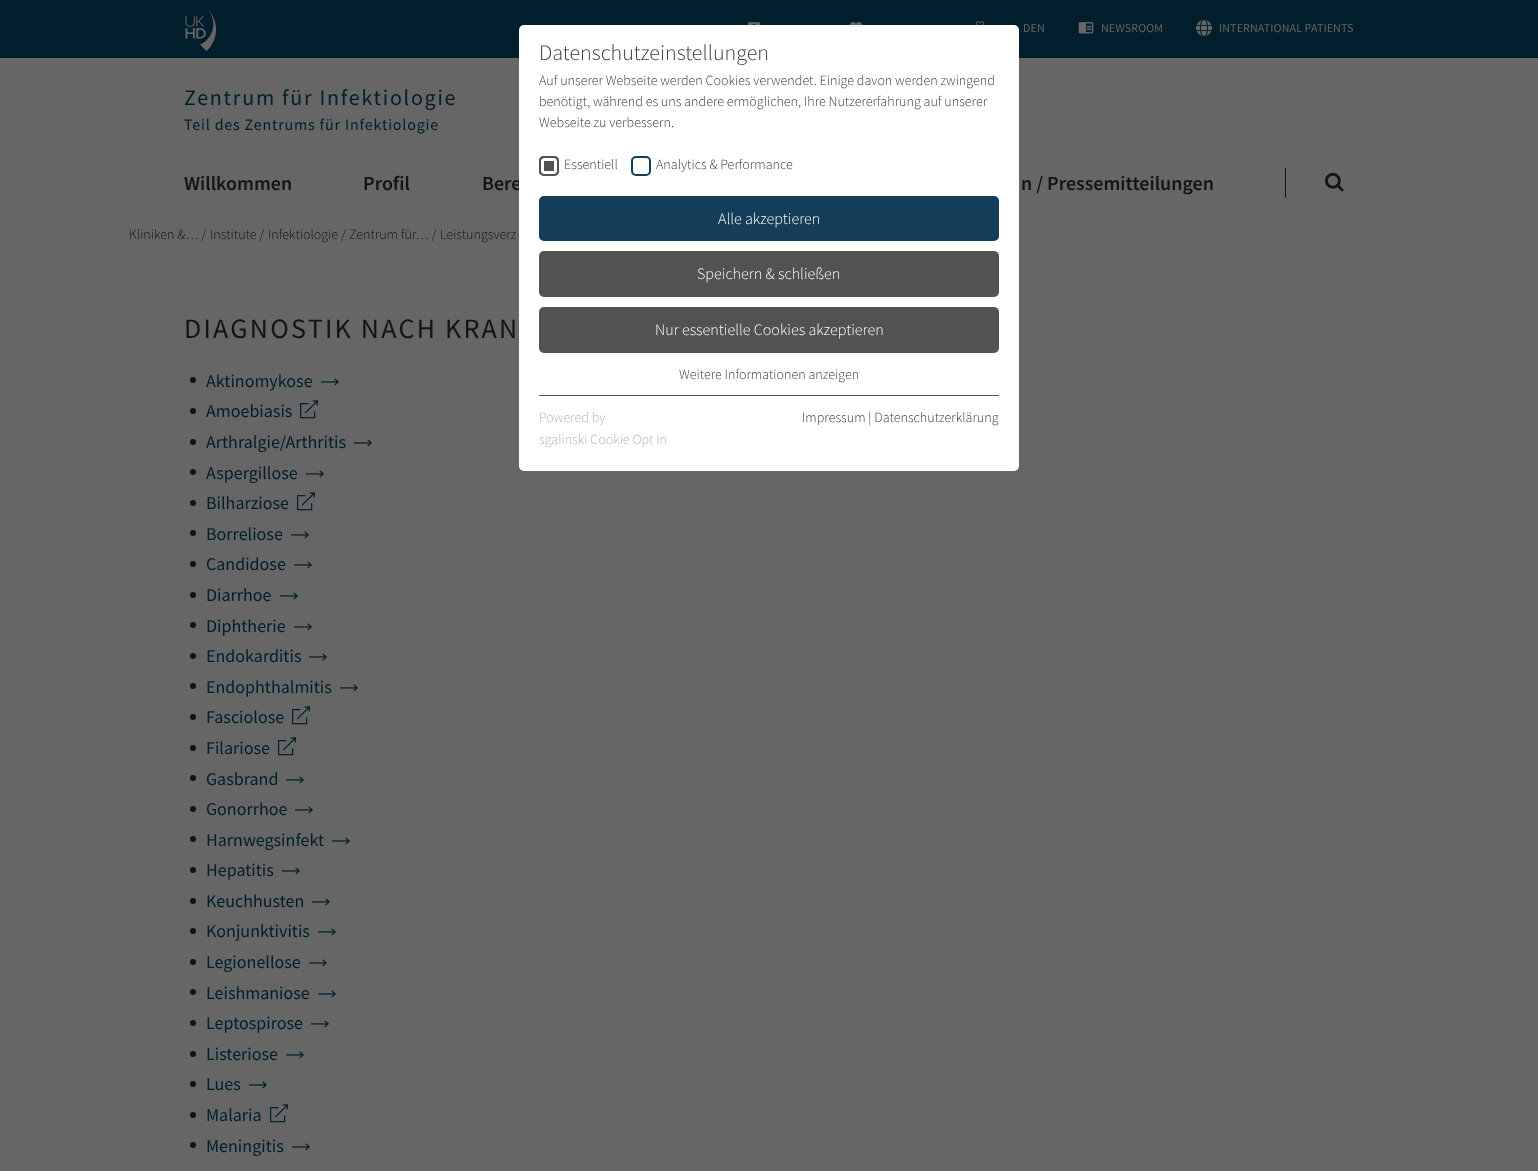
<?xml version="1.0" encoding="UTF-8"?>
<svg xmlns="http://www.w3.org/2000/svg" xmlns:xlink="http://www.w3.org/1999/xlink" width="1538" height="1171">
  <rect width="100%" height="100%" fill="#666666" />
  <rect width="1538" height="58" fill="#001e2c" />
  <image x="185" y="8" width="31" height="43" xlink:href="image1.png" />
  <image x="748" y="22" width="12" height="3" xlink:href="image2.png" />
  <image x="849" y="22" width="14" height="3" xlink:href="image3.png" />
  <image x="976" y="21" width="8" height="4" xlink:href="image4.png" />
  <image x="1078" y="22" width="16" height="12" xlink:href="image5.png" />
  <image x="1196" y="20" width="16" height="16" xlink:href="image6.png" />
  <rect x="1285" y="168" width="1" height="30" fill="#141414" />
  <image x="1325" y="172" width="19" height="20" xlink:href="image7.png" />
  <circle cx="193" cy="380" r="3" fill="#141414" />
  <image x="321" y="378" width="18" height="8" xlink:href="image8.png" />
  <circle cx="193" cy="411" r="3" fill="#141414" />
  <image x="300" y="400" width="18" height="19" xlink:href="image9.png" />
  <circle cx="193" cy="442" r="3" fill="#141414" />
  <image x="354" y="439" width="18" height="8" xlink:href="image8.png" />
  <circle cx="193" cy="472" r="3" fill="#141414" />
  <image x="306" y="470" width="18" height="8" xlink:href="image8.png" />
  <circle cx="193" cy="503" r="3" fill="#141414" />
  <image x="297" y="492" width="18" height="19" xlink:href="image9.png" />
  <circle cx="193" cy="533" r="3" fill="#141414" />
  <image x="291" y="531" width="18" height="8" xlink:href="image8.png" />
  <circle cx="193" cy="564" r="3" fill="#141414" />
  <image x="294" y="561" width="18" height="8" xlink:href="image8.png" />
  <circle cx="193" cy="595" r="3" fill="#141414" />
  <image x="280" y="592" width="18" height="8" xlink:href="image8.png" />
  <circle cx="193" cy="625" r="3" fill="#141414" />
  <image x="294" y="623" width="18" height="8" xlink:href="image8.png" />
  <circle cx="193" cy="656" r="3" fill="#141414" />
  <image x="309" y="653" width="18" height="8" xlink:href="image8.png" />
  <circle cx="193" cy="686" r="3" fill="#141414" />
  <image x="340" y="684" width="18" height="8" xlink:href="image8.png" />
  <circle cx="193" cy="717" r="3" fill="#141414" />
  <image x="292" y="706" width="18" height="19" xlink:href="image9.png" />
  <circle cx="193" cy="748" r="3" fill="#141414" />
  <image x="278" y="737" width="18" height="19" xlink:href="image9.png" />
  <circle cx="193" cy="778" r="3" fill="#141414" />
  <image x="286" y="776" width="18" height="8" xlink:href="image8.png" />
  <circle cx="193" cy="809" r="3" fill="#141414" />
  <image x="295" y="806" width="18" height="8" xlink:href="image8.png" />
  <circle cx="193" cy="839" r="3" fill="#141414" />
  <image x="332" y="837" width="18" height="8" xlink:href="image8.png" />
  <circle cx="193" cy="870" r="3" fill="#141414" />
  <image x="282" y="867" width="18" height="8" xlink:href="image8.png" />
  <circle cx="193" cy="901" r="3" fill="#141414" />
  <image x="312" y="898" width="18" height="8" xlink:href="image8.png" />
  <circle cx="193" cy="931" r="3" fill="#141414" />
  <image x="318" y="928" width="18" height="8" xlink:href="image8.png" />
  <circle cx="193" cy="962" r="3" fill="#141414" />
  <image x="309" y="959" width="18" height="8" xlink:href="image8.png" />
  <circle cx="193" cy="992" r="3" fill="#141414" />
  <image x="318" y="990" width="18" height="8" xlink:href="image8.png" />
  <circle cx="193" cy="1023" r="3" fill="#141414" />
  <image x="311" y="1020" width="18" height="8" xlink:href="image8.png" />
  <circle cx="193" cy="1054" r="3" fill="#141414" />
  <image x="286" y="1051" width="18" height="8" xlink:href="image8.png" />
  <circle cx="193" cy="1084" r="3" fill="#141414" />
  <image x="249" y="1081" width="18" height="8" xlink:href="image8.png" />
  <circle cx="193" cy="1115" r="3" fill="#141414" />
  <image x="270" y="1104" width="18" height="19" xlink:href="image9.png" />
  <circle cx="193" cy="1145" r="3" fill="#141414" />
  <image x="292" y="1143" width="18" height="8" xlink:href="image8.png" />
  <text x="1023" y="32" style="font-family: Source Sans Pro; font-size: 12px; letter-spacing: 0.1px; fill: #666666">DEN</text>
  <text x="1101" y="32" style="font-family: Source Sans Pro; font-size: 12px; letter-spacing: 0.1px; fill: #666666">NEWSROOM</text>
  <text x="1219" y="32" style="font-family: Source Sans Pro; font-size: 12px; letter-spacing: 0.1px; fill: #666666">INTERNATIONAL PATIENTS</text>
  <text x="184" y="105" style="font-family: Source Sans Pro; font-size: 22px; letter-spacing: 1.75px; fill: #001e2c">Zentrum für Infektiologie</text>
  <text x="184" y="130" style="font-family: Source Sans Pro; font-size: 16px; letter-spacing: 0.8px; fill: #001e2c">Teil des Zentrums für Infektiologie</text>
  <text x="184" y="190" style="font-family: Source Sans Pro; font-size: 20px; font-weight: 600; fill: #141414">Willkommen</text>
  <text x="363" y="190" style="font-family: Source Sans Pro; font-size: 20px; font-weight: 600; fill: #141414">Profil</text>
  <text x="482" y="190" style="font-family: Source Sans Pro; font-size: 20px; font-weight: 600; fill: #141414">Bere</text>
  <text x="1021" y="190" style="font-family: Source Sans Pro; font-size: 20px; font-weight: 600; fill: #141414">n / Pressemitteilungen</text>
  <text x="129" y="239" style="font-family: Source Sans Pro; font-size: 14px; font-weight: 300; fill: #141414">Kliniken &amp;… /</text>
  <text x="210" y="239" style="font-family: Source Sans Pro; font-size: 14px; font-weight: 300; fill: #141414">Institute /</text>
  <text x="268" y="239" style="font-family: Source Sans Pro; font-size: 14px; font-weight: 300; fill: #141414">Infektiologie /</text>
  <text x="349" y="239" style="font-family: Source Sans Pro; font-size: 14px; font-weight: 300; fill: #141414">Zentrum für… /</text>
  <text x="440" y="239" style="font-family: Source Sans Pro; font-size: 14px; font-weight: 300; fill: #141414">Leistungsverz</text>
  <text x="184" y="338" style="font-family: Source Sans Pro; font-size: 28px; letter-spacing: 2.25px; fill: #141414">DIAGNOSTIK NACH KRAN</text>
  <text x="206" y="387" style="font-family: Source Sans Pro; font-size: 18px; fill: #001e2c">Aktinomykose</text>
  <text x="206" y="417" style="font-family: Source Sans Pro; font-size: 18px; fill: #001e2c">Amoebiasis</text>
  <text x="206" y="448" style="font-family: Source Sans Pro; font-size: 18px; fill: #001e2c">Arthralgie/Arthritis</text>
  <text x="206" y="479" style="font-family: Source Sans Pro; font-size: 18px; fill: #001e2c">Aspergillose</text>
  <text x="206" y="509" style="font-family: Source Sans Pro; font-size: 18px; fill: #001e2c">Bilharziose</text>
  <text x="206" y="540" style="font-family: Source Sans Pro; font-size: 18px; fill: #001e2c">Borreliose</text>
  <text x="206" y="570" style="font-family: Source Sans Pro; font-size: 18px; fill: #001e2c">Candidose</text>
  <text x="206" y="601" style="font-family: Source Sans Pro; font-size: 18px; fill: #001e2c">Diarrhoe</text>
  <text x="206" y="632" style="font-family: Source Sans Pro; font-size: 18px; fill: #001e2c">Diphtherie</text>
  <text x="206" y="662" style="font-family: Source Sans Pro; font-size: 18px; fill: #001e2c">Endokarditis</text>
  <text x="206" y="693" style="font-family: Source Sans Pro; font-size: 18px; fill: #001e2c">Endophthalmitis</text>
  <text x="206" y="723" style="font-family: Source Sans Pro; font-size: 18px; fill: #001e2c">Fasciolose</text>
  <text x="206" y="754" style="font-family: Source Sans Pro; font-size: 18px; fill: #001e2c">Filariose</text>
  <text x="206" y="785" style="font-family: Source Sans Pro; font-size: 18px; fill: #001e2c">Gasbrand</text>
  <text x="206" y="815" style="font-family: Source Sans Pro; font-size: 18px; fill: #001e2c">Gonorrhoe</text>
  <text x="206" y="846" style="font-family: Source Sans Pro; font-size: 18px; fill: #001e2c">Harnwegsinfekt</text>
  <text x="206" y="876" style="font-family: Source Sans Pro; font-size: 18px; fill: #001e2c">Hepatitis</text>
  <text x="206" y="907" style="font-family: Source Sans Pro; font-size: 18px; fill: #001e2c">Keuchhusten</text>
  <text x="206" y="937" style="font-family: Source Sans Pro; font-size: 18px; fill: #001e2c">Konjunktivitis</text>
  <text x="206" y="968" style="font-family: Source Sans Pro; font-size: 18px; fill: #001e2c">Legionellose</text>
  <text x="206" y="999" style="font-family: Source Sans Pro; font-size: 18px; fill: #001e2c">Leishmaniose</text>
  <text x="206" y="1029" style="font-family: Source Sans Pro; font-size: 18px; fill: #001e2c">Leptospirose</text>
  <text x="206" y="1060" style="font-family: Source Sans Pro; font-size: 18px; fill: #001e2c">Listeriose</text>
  <text x="206" y="1090" style="font-family: Source Sans Pro; font-size: 18px; fill: #001e2c">Lues</text>
  <text x="206" y="1121" style="font-family: Source Sans Pro; font-size: 18px; fill: #001e2c">Malaria</text>
  <text x="206" y="1152" style="font-family: Source Sans Pro; font-size: 18px; fill: #001e2c">Meningitis</text>
  <rect x="519" y="25" width="500" height="446" rx="5" fill="#ffffff" />
  <text x="539" y="60" style="font-family: Source Sans Pro; font-size: 22px; font-weight: 300; fill: #373737">Datenschutzeinstellungen</text>
  <text x="539" y="85" style="font-family: Source Sans Pro; font-size: 14px; font-weight: 300; fill: #373737">Auf unserer Webseite werden Cookies verwendet. Einige davon werden zwingend</text>
  <text x="539" y="106" style="font-family: Source Sans Pro; font-size: 14px; font-weight: 300; fill: #373737">benötigt, während es uns andere ermöglichen, Ihre Nutzererfahrung auf unserer</text>
  <text x="539" y="127" style="font-family: Source Sans Pro; font-size: 14px; font-weight: 300; fill: #373737">Webseite zu verbessern.</text>
  <rect x="539" y="156" width="20" height="20" rx="5" fill="#525252" />
  <rect x="542.5" y="159.5" width="13" height="13" rx="1.5" fill="none" stroke="#ffffff" stroke-width="3" />
  <rect x="540" y="157" width="18" height="18" rx="4" fill="none" stroke="#525252" stroke-width="2" />
  <text x="564" y="169" style="font-family: Source Sans Pro; font-size: 14px; font-weight: 300; fill: #373737">Essentiell</text>
  <rect x="632" y="157" width="18" height="18" rx="4" fill="none" stroke="#143d59" stroke-width="2" />
  <text x="656" y="169" style="font-family: Source Sans Pro; font-size: 14px; font-weight: 300; fill: #373737">Analytics &amp; Performance</text>
  <rect x="539" y="196" width="460" height="45" rx="5" fill="#143d59" />
  <text x="718" y="224" style="font-family: Source Sans Pro; font-size: 16px; font-weight: 300; fill: #ffffff">Alle akzeptieren</text>
  <rect x="539" y="251" width="460" height="46" rx="5" fill="#525252" />
  <text x="697" y="279" style="font-family: Source Sans Pro; font-size: 16px; font-weight: 300; fill: #ffffff">Speichern &amp; schließen</text>
  <rect x="539" y="307" width="460" height="46" rx="5" fill="#525252" />
  <text x="655" y="335" style="font-family: Source Sans Pro; font-size: 16px; font-weight: 300; fill: #ffffff">Nur essentielle Cookies akzeptieren</text>
  <text x="679" y="379" style="font-family: Source Sans Pro; font-size: 14px; font-weight: 300; fill: #373737">Weitere Informationen anzeigen</text>
  <rect x="539" y="395" width="460" height="1" fill="#525252" />
  <text x="539" y="422" style="font-family: Source Sans Pro; font-size: 14px; font-weight: 300; fill: #b4b4b4">Powered by</text>
  <text x="539" y="444" style="font-family: Source Sans Pro; font-size: 14px; font-weight: 300; fill: #b4b4b4">sgalinski Cookie Opt In</text>
  <text x="802" y="422" style="font-family: Source Sans Pro; font-size: 14px; font-weight: 300; fill: #373737">Impressum | Datenschutzerklärung</text>
</svg>
